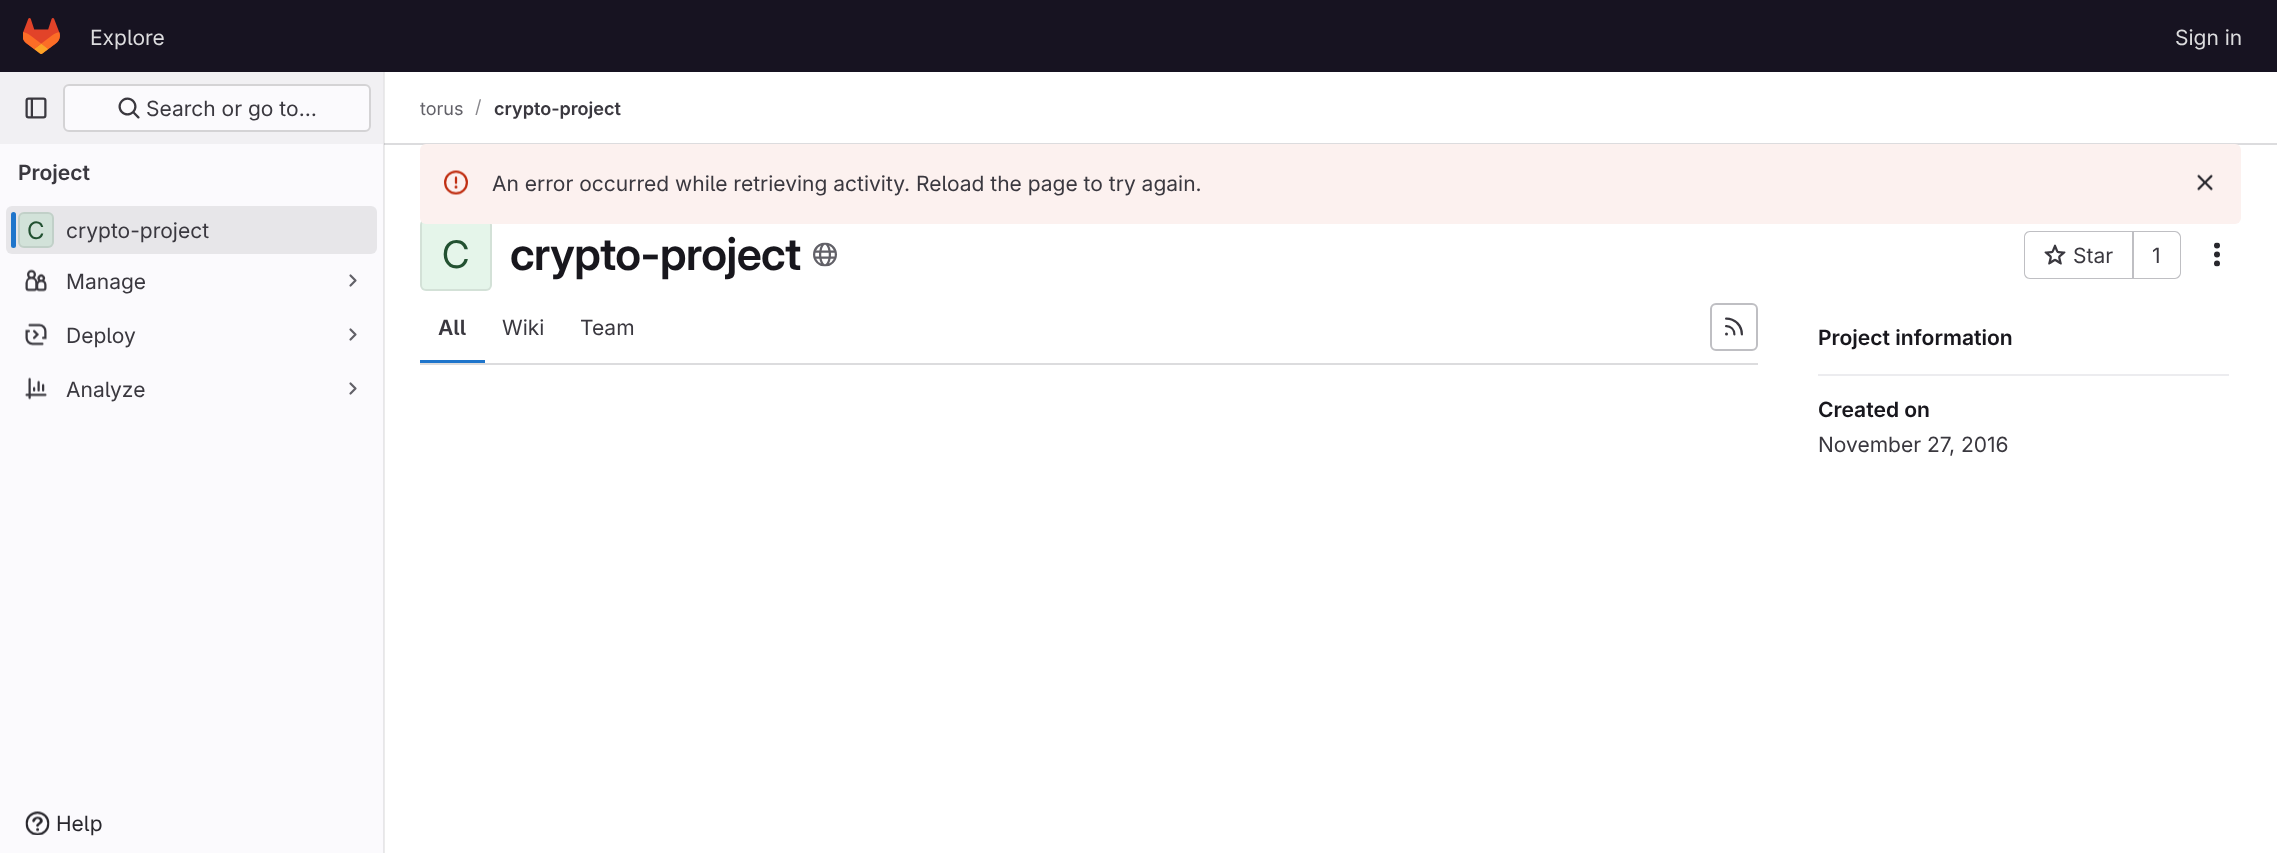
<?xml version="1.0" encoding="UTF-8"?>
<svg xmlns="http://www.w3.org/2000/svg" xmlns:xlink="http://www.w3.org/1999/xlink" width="2277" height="853">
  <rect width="100%" height="100%" fill="#ffffff" />
  <rect x="384" y="72" width="1" height="781" fill="#ebebeb" />
  <rect width="2277" height="72" fill="#171321" />
  <image x="23" y="18" width="37" height="36" xlink:href="image1.png" />
  <rect y="144" width="383" height="709" fill="#fbfafd" />
  <rect x="383" y="72" width="1" height="781" fill="#e7e6e9" />
  <rect y="72" width="383" height="72" fill="#f1f0f3" />
  <image x="25" y="97" width="22" height="22" xlink:href="image2.png" />
  <rect x="64" y="85" width="306" height="46" rx="5" fill="#fbfafd" stroke="#d4d3d5" stroke-width="2" />
  <image x="118" y="97" width="22" height="22" xlink:href="image3.png" />
  <rect x="6" y="206" width="371" height="48" rx="6" fill="#e7e6e9" />
  <rect x="11" y="212" width="5" height="36" rx="2.5" fill="#1f75cb" />
  <rect x="18" y="212" width="36" height="36" rx="6" fill="#d2e2d9" />
  <rect x="19" y="213" width="34" height="34" rx="5" fill="none" stroke="#050506" stroke-opacity="0.08" stroke-width="2" />
  <image x="25" y="269" width="22" height="23" xlink:href="image4.png" />
  <path d="M 350.5 275.5 l 5 5 l -5 5" fill="none" stroke="#626168" stroke-width="2.2" stroke-linecap="round" stroke-linejoin="round" />
  <image x="25" y="323" width="22" height="23" xlink:href="image5.png" />
  <path d="M 350.5 329.5 l 5 5 l -5 5" fill="none" stroke="#626168" stroke-width="2.2" stroke-linecap="round" stroke-linejoin="round" />
  <image x="25" y="377" width="22" height="23" xlink:href="image6.png" />
  <path d="M 350.5 383.5 l 5 5 l -5 5" fill="none" stroke="#626168" stroke-width="2.2" stroke-linecap="round" stroke-linejoin="round" />
  <image x="25" y="811" width="25" height="24" xlink:href="image7.png" />
  <rect x="384" y="143" width="1893" height="2" fill="#dcdcde" />
  <rect x="384" y="143" width="1" height="2" fill="#cbcbcd" />
  <rect x="420" y="219" width="72" height="72" rx="6" fill="#e5f5ea" />
  <rect x="421" y="220" width="70" height="70" rx="5" fill="none" stroke="#050506" stroke-opacity="0.08" stroke-width="2" />
  <rect x="420" y="144" width="1821" height="80" rx="6" fill="#fcf1ef" />
  <image x="444" y="170" width="24" height="25" xlink:href="image8.png" />
  <image x="2197" y="174" width="16" height="17" xlink:href="image9.png" />
  <image x="813" y="242" width="24" height="25" xlink:href="image10.png" />
  <path d="M 2030 231 h 102 v 48 h -102 c -4 0 -6 -3 -6 -6 v -36 c 0 -3 2 -6 6 -6 z m 0 1 h 102 v 46 h -102 c -3 0 -5 -3 -5 -5 v -36 c 0 -2 2 -5 5 -5 z" fill="#bfbfc3" fill-rule="evenodd" />
  <image x="2044" y="244" width="22" height="21" xlink:href="image11.png" />
  <path d="M 2133 231 h 42 c 3 0 6 3 6 6 v 36 c 0 3 -3 6 -6 6 h -42 z m 0 1 h 42 c 2 0 5 3 5 5 v 36 c 0 2 -3 5 -5 5 h -42 z" fill="#bfbfc3" fill-rule="evenodd" />
  <rect x="2132" y="231" width="2" height="48" fill="#bfbfc3" />
  <image x="2214" y="242" width="6" height="25" xlink:href="image12.png" />
  <rect x="420" y="363" width="1338" height="2" fill="#dcdcde" />
  <rect x="420" y="360" width="65" height="3" fill="#1f75cb" />
  <rect x="1711" y="304" width="46" height="46" rx="5" fill="none" stroke="#bfbfc3" stroke-width="2" />
  <image x="1725" y="317" width="18" height="19" xlink:href="image13.png" />
  <rect x="1818" y="374" width="411" height="2" fill="#ececef" />
  <text x="90" y="45" style="font-family: 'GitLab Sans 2'; font-size: 21px; fill: #dcdcde">Explore</text>
  <text x="2175" y="45" style="font-family: 'GitLab Sans 2'; font-size: 21px; fill: #dcdcde">Sign in</text>
  <text x="146" y="116" style="font-family: 'GitLab Sans 2'; font-size: 21px; fill: #3a383f">Search or go to…</text>
  <text x="18" y="180" style="font-family: 'GitLab Sans 2'; font-size: 21px; font-weight: 600; fill: #3a383f">Project</text>
  <text x="27" y="239" style="font-family: 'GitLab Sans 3'; font-size: 24px; fill: #225131">C</text>
  <text x="66" y="238" style="font-family: 'GitLab Sans 2'; font-size: 21px; fill: #3a383f">crypto-project</text>
  <text x="66" y="289" style="font-family: 'GitLab Sans 2'; font-size: 21px; fill: #3a383f">Manage</text>
  <text x="66" y="343" style="font-family: 'GitLab Sans 2'; font-size: 21px; fill: #3a383f">Deploy</text>
  <text x="66" y="397" style="font-family: 'GitLab Sans 2'; font-size: 21px; fill: #3a383f">Analyze</text>
  <text x="56" y="831" style="font-family: 'GitLab Sans 2'; font-size: 21px; fill: #28272d">Help</text>
  <text x="420" y="115" style="font-family: 'GitLab Sans 2'; font-size: 18px; fill: #626168">torus</text>
  <text x="475" y="113" style="font-family: 'GitLab Sans 2'; font-size: 18px; fill: #89888d">/</text>
  <text x="494" y="115" style="font-family: 'GitLab Sans 2'; font-size: 18px; font-weight: 600; fill: #3a383f">crypto-project</text>
  <text x="492" y="191" style="font-family: 'GitLab Sans 2'; font-size: 21px; fill: #3a383f">An error occurred while retrieving activity. Reload the page to try again.</text>
  <text x="442" y="268" style="font-family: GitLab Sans; font-size: 38px; fill: #225131">C</text>
  <text x="510" y="270" style="font-family: GitLab Sans; font-size: 45px; font-weight: 600; letter-spacing: -0.5px; fill: #18171d">crypto-project</text>
  <text x="2073" y="263" style="font-family: 'GitLab Sans 2'; font-size: 21px; fill: #3a383f">Star</text>
  <text x="2152" y="263" style="font-family: 'GitLab Sans 2'; font-size: 21px; fill: #3a383f">1</text>
  <text x="438" y="335" style="font-family: 'GitLab Sans 2'; font-size: 21px; font-weight: 600; fill: #3a383f">All</text>
  <text x="502" y="335" style="font-family: 'GitLab Sans 2'; font-size: 21px; fill: #3a383f">Wiki</text>
  <text x="580" y="335" style="font-family: 'GitLab Sans 2'; font-size: 21px; fill: #3a383f">Team</text>
  <text x="1818" y="345" style="font-family: 'GitLab Sans 2'; font-size: 21px; font-weight: 600; fill: #18171d">Project information</text>
  <text x="1818" y="417" style="font-family: 'GitLab Sans 2'; font-size: 21px; font-weight: 600; fill: #18171d">Created on</text>
  <text x="1818" y="452" style="font-family: 'GitLab Sans 2'; font-size: 21px; fill: #3a383f">November 27, 2016</text>
</svg>
